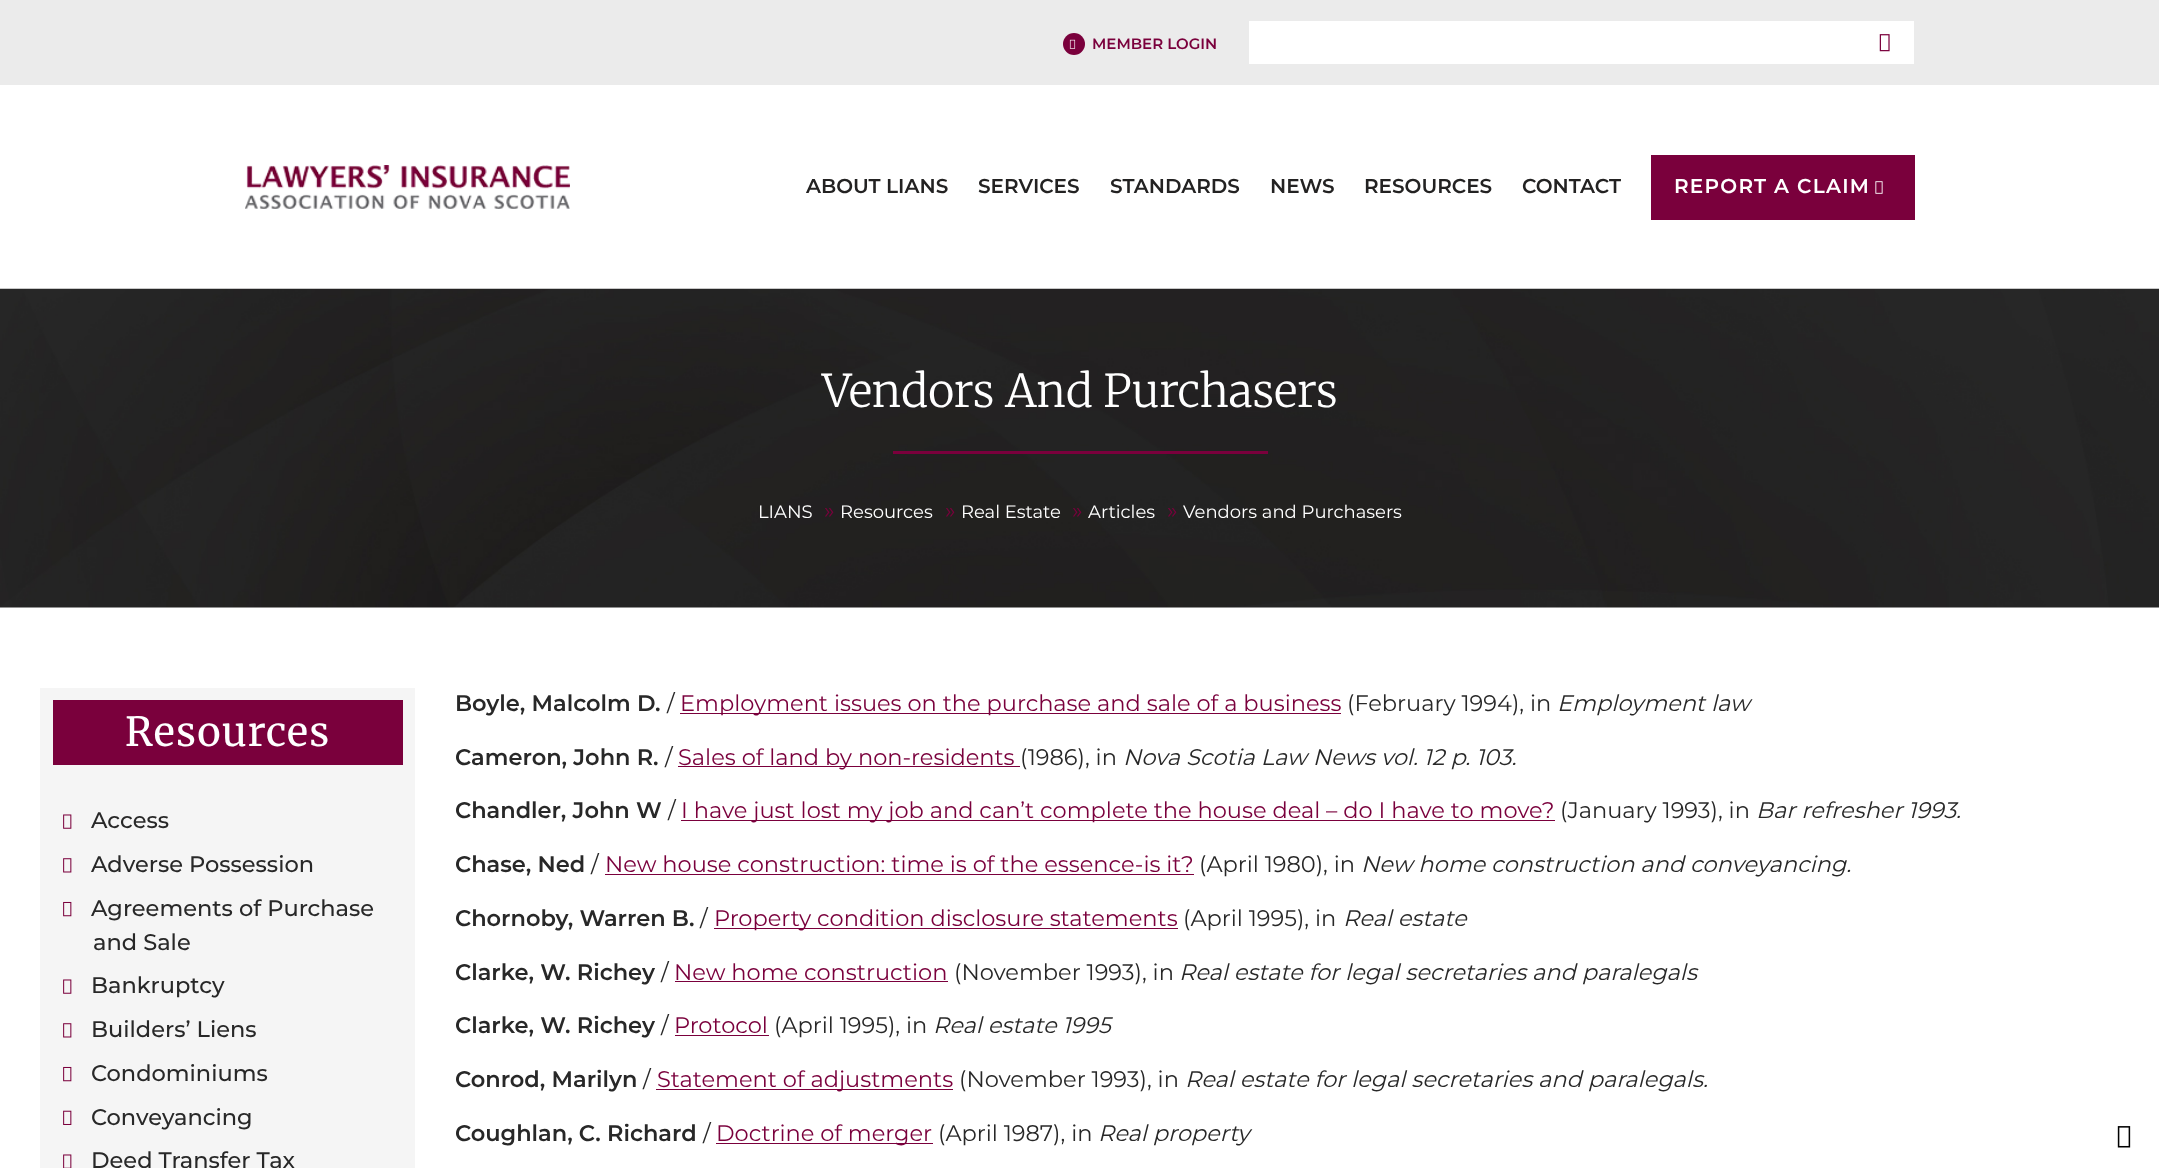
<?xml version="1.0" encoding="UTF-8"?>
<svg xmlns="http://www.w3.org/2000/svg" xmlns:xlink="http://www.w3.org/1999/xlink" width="2159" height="1168">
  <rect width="100%" height="100%" fill="#ffffff" />
  <rect width="2159" height="85" fill="#ebebeb" />
  <circle cx="1074" cy="44" r="11" fill="#7a003c" />
  <image x="1069" y="39" width="7" height="10" xlink:href="image1.png" />
  <rect x="1249" y="21" width="665" height="43" fill="#ffffff" />
  <image x="1879" y="34" width="11" height="18" xlink:href="image2.png" />
  <image x="245" y="165" width="325" height="44" xlink:href="image3.png" />
  <rect x="1651" y="155" width="264" height="65" fill="#7a003c" />
  <image x="1875" y="181" width="8" height="13" xlink:href="image4.png" />
  <image x="0" y="288" width="2159" height="320" xlink:href="image5.png" />
  <rect x="893" y="451" width="375" height="3" fill="#7a003c" />
  <rect x="40" y="688" width="375" height="480" fill="#f5f5f5" />
  <rect x="53" y="700" width="350" height="65" fill="#7a003c" />
  <image x="63" y="814" width="9" height="15" xlink:href="image6.png" />
  <image x="63" y="858" width="9" height="15" xlink:href="image7.png" />
  <image x="63" y="901" width="9" height="16" xlink:href="image8.png" />
  <image x="63" y="979" width="9" height="15" xlink:href="image6.png" />
  <image x="63" y="1023" width="9" height="15" xlink:href="image7.png" />
  <image x="63" y="1066" width="9" height="16" xlink:href="image8.png" />
  <image x="63" y="1110" width="9" height="15" xlink:href="image9.png" />
  <image x="63" y="1154" width="9" height="14" xlink:href="image10.png" />
  <rect x="680" y="713" width="661" height="1" fill="#7a003c" />
  <rect x="678" y="766" width="342" height="1" fill="#7a003c" />
  <rect x="681" y="820" width="874" height="1" fill="#7a003c" />
  <rect x="605" y="874" width="589" height="1" fill="#7a003c" />
  <rect x="714" y="928" width="464" height="1" fill="#7a003c" />
  <rect x="675" y="981" width="273" height="1" fill="#7a003c" />
  <rect x="675" y="1035" width="94" height="1" fill="#7a003c" />
  <rect x="656" y="1089" width="297" height="1" fill="#7a003c" />
  <rect x="716" y="1143" width="217" height="1" fill="#7a003c" />
  <image x="2117" y="1126" width="14" height="22" xlink:href="image11.png" />
  <text x="1092" y="49" style="font-family: Montserrat; font-size: 15px; font-weight: 600; fill: #7a003c">MEMBER LOGIN</text>
  <text x="806" y="193" style="font-family: Montserrat; font-size: 20px; font-weight: 600; fill: #232222">ABOUT LIANS</text>
  <text x="978" y="193" style="font-family: Montserrat; font-size: 20px; font-weight: 600; fill: #232222">SERVICES</text>
  <text x="1110" y="193" style="font-family: Montserrat; font-size: 20px; font-weight: 600; fill: #232222">STANDARDS</text>
  <text x="1270" y="193" style="font-family: Montserrat; font-size: 20px; font-weight: 600; fill: #232222">NEWS</text>
  <text x="1364" y="193" style="font-family: Montserrat; font-size: 20px; font-weight: 600; fill: #232222">RESOURCES</text>
  <text x="1522" y="193" style="font-family: Montserrat; font-size: 20px; font-weight: 600; fill: #232222">CONTACT</text>
  <text x="1674" y="193" style="font-family: Montserrat; font-size: 20px; font-weight: 600; letter-spacing: 1.25px; fill: #ffffff">REPORT A CLAIM</text>
  <text x="822" y="407" style="font-family: Merriweather; font-size: 45px; font-weight: 300; fill: #ffffff">Vendors And Purchasers</text>
  <text x="758" y="518" style="font-family: Montserrat; font-size: 18px; fill: #ffffff">LIANS</text>
  <text x="824" y="518" style="font-family: Montserrat; font-size: 22px; fill: #7a003c">»</text>
  <text x="840" y="518" style="font-family: Montserrat; font-size: 18px; fill: #ffffff">Resources</text>
  <text x="945" y="518" style="font-family: Montserrat; font-size: 22px; fill: #7a003c">»</text>
  <text x="961" y="518" style="font-family: Montserrat; font-size: 18px; fill: #ffffff">Real Estate</text>
  <text x="1072" y="518" style="font-family: Montserrat; font-size: 22px; fill: #7a003c">»</text>
  <text x="1088" y="518" style="font-family: Montserrat; font-size: 18px; fill: #ffffff">Articles</text>
  <text x="1167" y="518" style="font-family: Montserrat; font-size: 22px; fill: #7a003c">»</text>
  <text x="1183" y="518" style="font-family: Montserrat; font-size: 18px; fill: #ffffff">Vendors and Purchasers</text>
  <text x="125" y="746" style="font-family: Merriweather; font-size: 40px; letter-spacing: 1.25px; fill: #ffffff">Resources</text>
  <text x="91" y="828" style="font-family: Montserrat; font-size: 22.5px; font-weight: 500; fill: #282828">Access</text>
  <text x="91" y="872" style="font-family: Montserrat; font-size: 22.5px; font-weight: 500; fill: #282828">Adverse Possession</text>
  <text x="91" y="916" style="font-family: Montserrat; font-size: 22.5px; font-weight: 500; fill: #282828">Agreements of Purchase</text>
  <text x="93" y="950" style="font-family: Montserrat; font-size: 22.5px; font-weight: 500; fill: #282828">and Sale</text>
  <text x="91" y="993" style="font-family: Montserrat; font-size: 22.5px; font-weight: 500; fill: #282828">Bankruptcy</text>
  <text x="91" y="1037" style="font-family: Montserrat; font-size: 22.5px; font-weight: 500; fill: #282828">Builders’ Liens</text>
  <text x="91" y="1081" style="font-family: Montserrat; font-size: 22.5px; font-weight: 500; fill: #282828">Condominiums</text>
  <text x="91" y="1125" style="font-family: Montserrat; font-size: 22.5px; font-weight: 500; fill: #282828">Conveyancing</text>
  <text x="91" y="1168" style="font-family: Montserrat; font-size: 22.5px; font-weight: 500; fill: #282828">Deed Transfer Tax</text>
  <text x="455" y="711" style="font-family: Montserrat; font-size: 22.5px; font-weight: 600; fill: #282828">Boyle, Malcolm D.</text>
  <text x="667" y="711" style="font-family: Montserrat; font-size: 22.5px; fill: #282828">/</text>
  <text x="680" y="711" style="font-family: Montserrat; font-size: 22.5px; fill: #7a003c">Employment issues on the purchase and sale of a business</text>
  <text x="1347" y="711" style="font-family: Montserrat; font-size: 22.5px; fill: #282828">(February 1994), in</text>
  <text x="1557" y="711" style="font-family: Montserrat; font-size: 22.5px; font-style: italic; fill: #282828">Employment law</text>
  <text x="455" y="765" style="font-family: Montserrat; font-size: 22.5px; font-weight: 600; fill: #282828">Cameron, John R.</text>
  <text x="665" y="765" style="font-family: Montserrat; font-size: 22.5px; fill: #282828">/</text>
  <text x="678" y="765" style="font-family: Montserrat; font-size: 22.5px; fill: #7a003c">Sales of land by non-residents</text>
  <text x="1020" y="765" style="font-family: Montserrat; font-size: 22.5px; fill: #282828">(1986), in</text>
  <text x="1123" y="765" style="font-family: Montserrat; font-size: 22.5px; font-style: italic; fill: #282828">Nova Scotia Law News vol. 12 p. 103.</text>
  <text x="455" y="818" style="font-family: Montserrat; font-size: 22.5px; font-weight: 600; fill: #282828">Chandler, John W</text>
  <text x="668" y="818" style="font-family: Montserrat; font-size: 22.5px; fill: #282828">/</text>
  <text x="681" y="818" style="font-family: Montserrat; font-size: 22.5px; fill: #7a003c">I have just lost my job and can’t complete the house deal – do I have to move?</text>
  <text x="1560" y="818" style="font-family: Montserrat; font-size: 22.5px; fill: #282828">(January 1993), in</text>
  <text x="1756" y="818" style="font-family: Montserrat; font-size: 22.5px; font-style: italic; fill: #282828">Bar refresher 1993.</text>
  <text x="455" y="872" style="font-family: Montserrat; font-size: 22.5px; font-weight: 600; fill: #282828">Chase, Ned</text>
  <text x="591" y="872" style="font-family: Montserrat; font-size: 22.5px; fill: #282828">/</text>
  <text x="605" y="872" style="font-family: Montserrat; font-size: 22.5px; fill: #7a003c">New house construction: time is of the essence-is it?</text>
  <text x="1199" y="872" style="font-family: Montserrat; font-size: 22.5px; fill: #282828">(April 1980), in</text>
  <text x="1361" y="872" style="font-family: Montserrat; font-size: 22.5px; font-style: italic; fill: #282828">New home construction and conveyancing.</text>
  <text x="455" y="926" style="font-family: Montserrat; font-size: 22.5px; font-weight: 600; fill: #282828">Chornoby, Warren B.</text>
  <text x="700" y="926" style="font-family: Montserrat; font-size: 22.5px; fill: #282828">/</text>
  <text x="714" y="926" style="font-family: Montserrat; font-size: 22.5px; fill: #7a003c">Property condition disclosure statements</text>
  <text x="1183" y="926" style="font-family: Montserrat; font-size: 22.5px; fill: #282828">(April 1995), in</text>
  <text x="1343" y="926" style="font-family: Montserrat; font-size: 22.5px; font-style: italic; fill: #282828">Real estate</text>
  <text x="455" y="980" style="font-family: Montserrat; font-size: 22.5px; font-weight: 600; fill: #282828">Clarke, W. Richey</text>
  <text x="661" y="980" style="font-family: Montserrat; font-size: 22.5px; fill: #282828">/</text>
  <text x="674" y="980" style="font-family: Montserrat; font-size: 22.5px; fill: #7a003c">New home construction</text>
  <text x="954" y="980" style="font-family: Montserrat; font-size: 22.5px; fill: #282828">(November 1993), in</text>
  <text x="1179" y="980" style="font-family: Montserrat; font-size: 22.5px; font-style: italic; fill: #282828">Real estate for legal secretaries and paralegals</text>
  <text x="455" y="1033" style="font-family: Montserrat; font-size: 22.5px; font-weight: 600; fill: #282828">Clarke, W. Richey</text>
  <text x="661" y="1033" style="font-family: Montserrat; font-size: 22.5px; fill: #282828">/</text>
  <text x="674" y="1033" style="font-family: Montserrat; font-size: 22.5px; fill: #7a003c">Protocol</text>
  <text x="774" y="1033" style="font-family: Montserrat; font-size: 22.5px; fill: #282828">(April 1995), in</text>
  <text x="933" y="1033" style="font-family: Montserrat; font-size: 22.5px; font-style: italic; fill: #282828">Real estate 1995</text>
  <text x="455" y="1087" style="font-family: Montserrat; font-size: 22.5px; font-weight: 600; fill: #282828">Conrod, Marilyn</text>
  <text x="643" y="1087" style="font-family: Montserrat; font-size: 22.5px; fill: #282828">/</text>
  <text x="657" y="1087" style="font-family: Montserrat; font-size: 22.5px; fill: #7a003c">Statement of adjustments</text>
  <text x="959" y="1087" style="font-family: Montserrat; font-size: 22.5px; fill: #282828">(November 1993), in</text>
  <text x="1185" y="1087" style="font-family: Montserrat; font-size: 22.5px; font-style: italic; fill: #282828">Real estate for legal secretaries and paralegals.</text>
  <text x="455" y="1141" style="font-family: Montserrat; font-size: 22.5px; font-weight: 600; fill: #282828">Coughlan, C. Richard</text>
  <text x="703" y="1141" style="font-family: Montserrat; font-size: 22.5px; fill: #282828">/</text>
  <text x="716" y="1141" style="font-family: Montserrat; font-size: 22.5px; fill: #7a003c">Doctrine of merger</text>
  <text x="938" y="1141" style="font-family: Montserrat; font-size: 22.5px; fill: #282828">(April 1987), in</text>
  <text x="1098" y="1141" style="font-family: Montserrat; font-size: 22.5px; font-style: italic; fill: #282828">Real property</text>
</svg>
